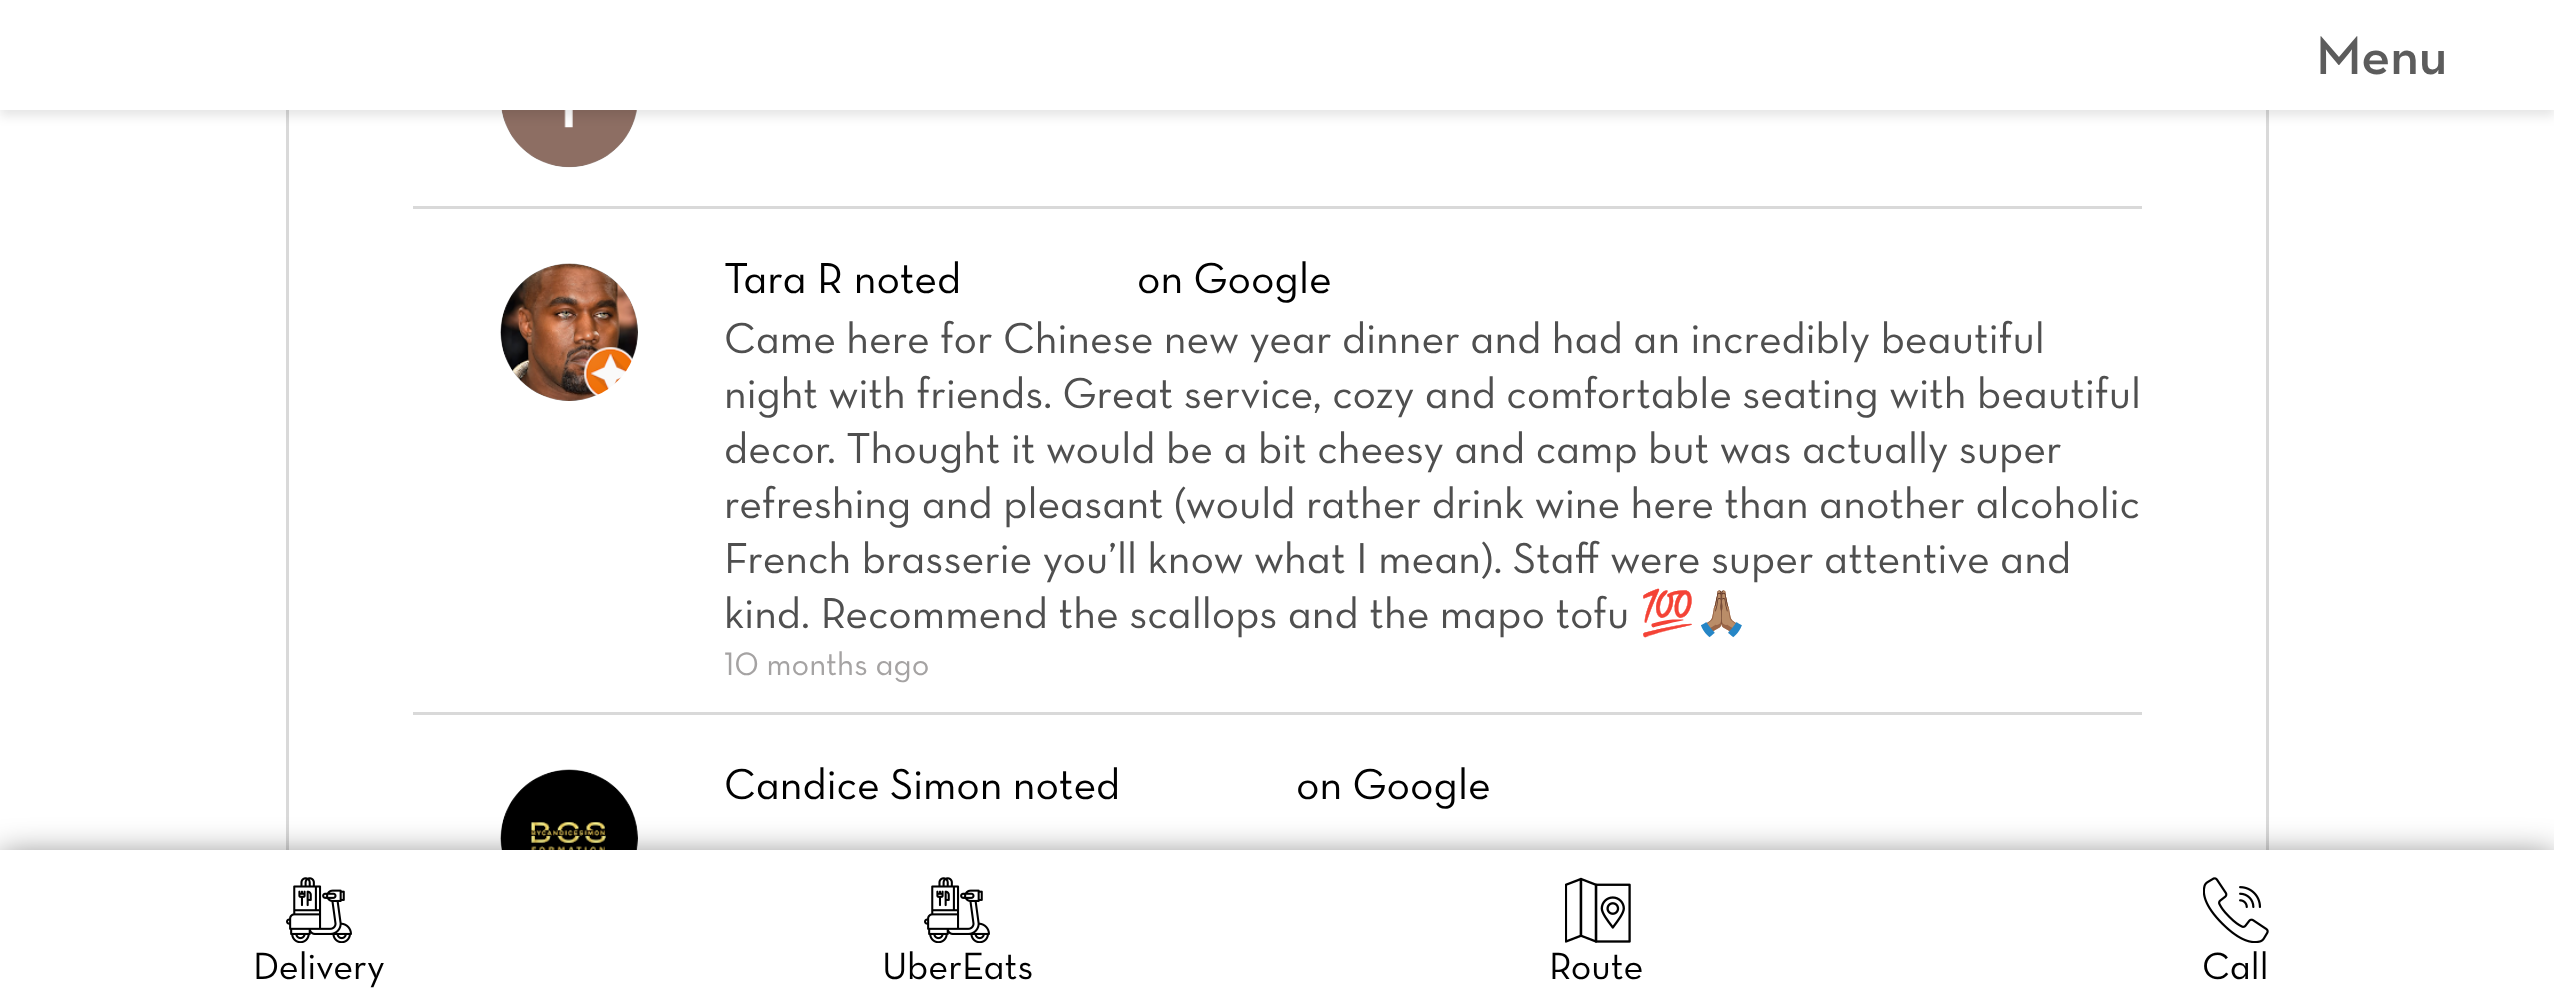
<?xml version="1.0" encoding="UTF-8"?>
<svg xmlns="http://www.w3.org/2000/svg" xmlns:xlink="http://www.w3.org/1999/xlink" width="2554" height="1008">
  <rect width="100%" height="100%" fill="#ffffff" />
  <rect x="287.5" y="-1.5" width="1980" height="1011" fill="none" stroke="#d9d9d9" stroke-width="3" />
  <image x="501" y="110" width="136" height="58" xlink:href="image1.png" />
  <rect y="6" width="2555" height="110" fill="#000000" fill-opacity="0.1" filter="blur(5.5px)" />
  <rect width="2554" height="110" fill="#ffffff" />
  <rect x="413" y="206" width="1729" height="3" fill="#d9d9d9" />
  <rect x="413" y="712" width="1729" height="3" fill="#d9d9d9" />
  <image x="500" y="263" width="138" height="138" xlink:href="image2.png" />
  <image x="500" y="769" width="138" height="81" xlink:href="image3.png" />
  <rect y="855" width="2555" height="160" fill="#000000" fill-opacity="0.5" filter="blur(16.5px)" />
  <rect y="850" width="2554" height="158" fill="#ffffff" />
  <image x="286" y="877" width="66" height="66" xlink:href="image4.png" />
  <image x="924" y="877" width="66" height="66" xlink:href="image4.png" />
  <image x="1565" y="877" width="66" height="66" xlink:href="image5.png" />
  <image x="2203" y="877" width="66" height="66" xlink:href="image6.png" />
  <text x="2316" y="74" style="font-family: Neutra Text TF; font-size: 55px; font-weight: 500; fill: #5c5c5c">Menu</text>
  <text x="724" y="293" style="font-family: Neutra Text; font-size: 44px; fill: #000000">Tara R noted</text>
  <text x="1137" y="293" style="font-family: Neutra Text; font-size: 44px; fill: #000000">on Google</text>
  <text x="724" y="353" style="font-family: Neutra Text; font-size: 44px; fill: #4f4f4f">Came here for Chinese new year dinner and had an incredibly beautiful</text>
  <text x="724" y="408" style="font-family: Neutra Text; font-size: 44px; fill: #4f4f4f">night with friends. Great service, cozy and comfortable seating with beautiful</text>
  <text x="724" y="463" style="font-family: Neutra Text; font-size: 44px; fill: #4f4f4f">decor. Thought it would be a bit cheesy and camp but was actually super</text>
  <text x="724" y="518" style="font-family: Neutra Text; font-size: 44px; fill: #4f4f4f">refreshing and pleasant (would rather drink wine here than another alcoholic</text>
  <text x="724" y="573" style="font-family: Neutra Text; font-size: 44px; fill: #4f4f4f">French brasserie you’ll know what I mean). Staff were super attentive and</text>
  <text x="724" y="628" style="font-family: Neutra Text; font-size: 44px; fill: #4f4f4f">kind. Recommend the scallops and the mapo tofu</text>
  <text x="1640" y="628" style="font-family: Noto Color Emoji; font-size: 44px; fill: #4f4f4f">💯🙏🏽</text>
  <text x="724" y="675" style="font-family: Neutra Text; font-size: 33px; fill: #a5a3a3">10 months ago</text>
  <text x="724" y="799" style="font-family: Neutra Text; font-size: 44px; fill: #000000">Candice Simon noted</text>
  <text x="1296" y="799" style="font-family: Neutra Text; font-size: 44px; fill: #000000">on Google</text>
  <text x="253" y="979" style="font-family: Neutra Text; font-size: 38.5px; fill: #000000">Delivery</text>
  <text x="882" y="979" style="font-family: Neutra Text; font-size: 38.5px; fill: #000000">UberEats</text>
  <text x="1549" y="979" style="font-family: Neutra Text; font-size: 38.5px; fill: #000000">Route</text>
  <text x="2202" y="979" style="font-family: Neutra Text; font-size: 38.5px; fill: #000000">Call</text>
</svg>
